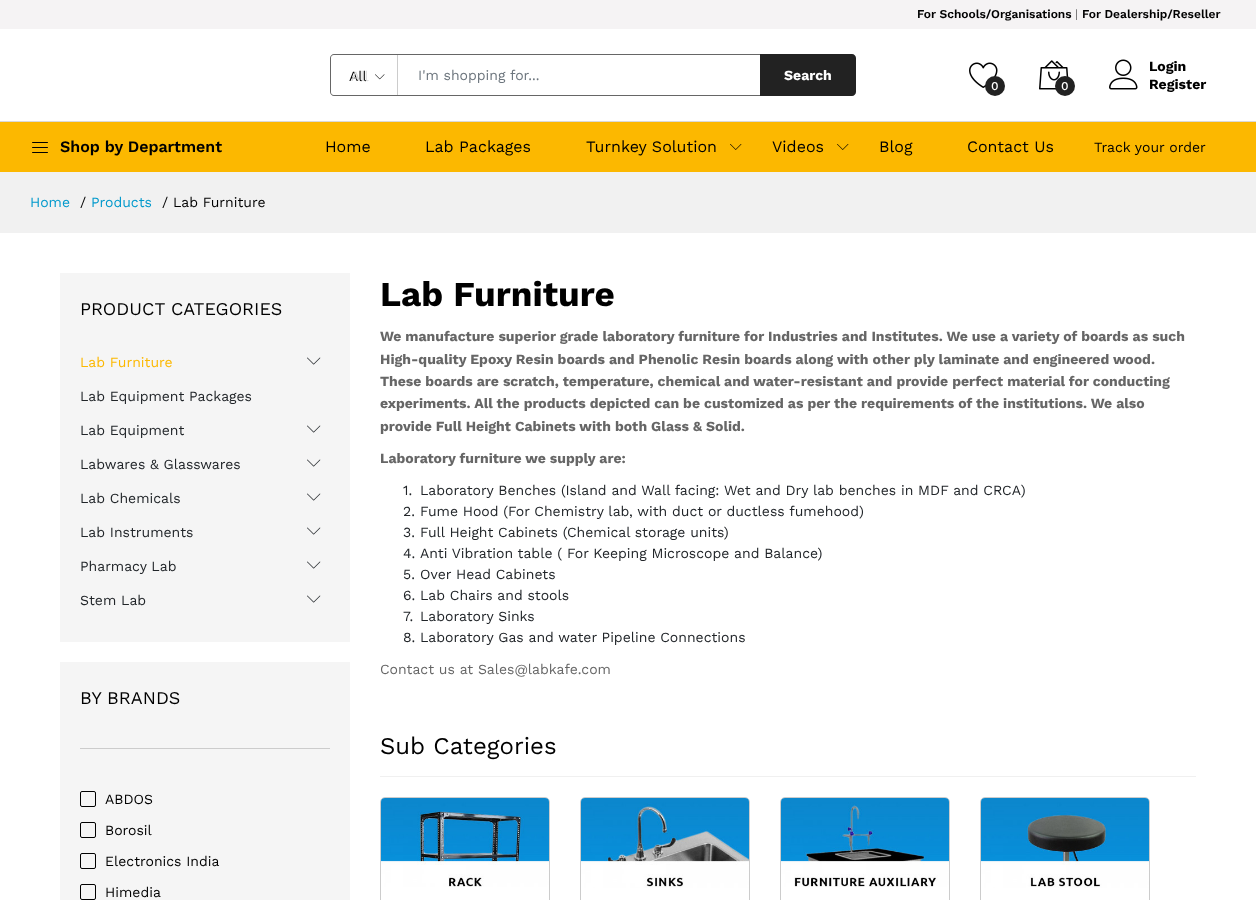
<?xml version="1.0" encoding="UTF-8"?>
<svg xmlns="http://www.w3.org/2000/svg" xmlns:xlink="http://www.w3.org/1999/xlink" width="1256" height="900">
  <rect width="100%" height="100%" fill="#ffffff" />
  <rect width="1256" height="29" fill="#f5f3f4" />
  <rect y="121" width="1256" height="1" fill="#d9d9d9" />
  <path d="M 334 54 h 64 v 42 h -64 c -2 0 -4 -2 -4 -4 v -34 c 0 -2 2 -4 4 -4 z m 0 1 h 64 v 40 h -64 c -2 0 -3 -1 -3 -3 v -34 c 0 -2 1 -3 3 -3 z" fill="#666666" fill-rule="evenodd" />
  <path d="M 336 55 h 62 v 40 h -62 c -3 0 -5 -2 -5 -5 v -30 c 0 -3 2 -5 5 -5 z" fill="#ffffff" />
  <rect x="397" y="55" width="1" height="40" fill="#cccccc" />
  <image x="375" y="74" width="10" height="6" xlink:href="image1.png" />
  <rect x="398" y="54" width="362" height="1" fill="#666666" />
  <rect x="398" y="95" width="362" height="1" fill="#666666" />
  <path d="M 760 54 h 92 c 2 0 4 2 4 4 v 34 c 0 2 -2 4 -4 4 h -92 z" fill="#222222" />
  <image x="969" y="62" width="29" height="26" xlink:href="image2.png" />
  <circle cx="995" cy="86" r="10" fill="#222222" />
  <image x="1039" y="60" width="30" height="30" xlink:href="image3.png" />
  <circle cx="1065" cy="86" r="10" fill="#222222" />
  <image x="1109" y="59" width="29" height="31" xlink:href="image4.png" />
  <rect y="122" width="1256" height="50" fill="#fcb800" />
  <image x="32" y="142" width="16" height="11" xlink:href="image5.png" />
  <image x="730" y="144" width="12" height="6" xlink:href="image6.png" />
  <image x="837" y="144" width="12" height="6" xlink:href="image6.png" />
  <rect y="172" width="1256" height="61" fill="#f1f1f1" />
  <rect x="60" y="273" width="290" height="369" fill="#f5f5f5" />
  <image x="307" y="357" width="14" height="8" xlink:href="image7.png" />
  <image x="307" y="425" width="14" height="8" xlink:href="image7.png" />
  <image x="307" y="459" width="14" height="8" xlink:href="image7.png" />
  <image x="307" y="493" width="14" height="8" xlink:href="image7.png" />
  <image x="307" y="527" width="14" height="8" xlink:href="image7.png" />
  <image x="307" y="561" width="14" height="8" xlink:href="image7.png" />
  <image x="307" y="595" width="14" height="8" xlink:href="image7.png" />
  <rect x="60" y="662" width="290" height="238" fill="#f5f5f5" />
  <rect x="80" y="748" width="250" height="1" fill="#cccccc" />
  <rect x="80.5" y="791.5" width="15" height="15" rx="1.5" fill="none" stroke="#000000" />
  <rect x="80.5" y="822.5" width="15" height="15" rx="1.5" fill="none" stroke="#000000" />
  <rect x="80.5" y="853.5" width="15" height="15" rx="1.5" fill="none" stroke="#000000" />
  <rect x="80.5" y="884.5" width="15" height="15" rx="1.5" fill="none" stroke="#000000" />
  <rect x="380" y="776" width="816" height="1" fill="#f0f0f0" />
  <rect x="380.5" y="797.5" width="169" height="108" rx="4.5" fill="none" stroke="#cccccc" />
  <image x="381" y="798" width="168" height="89" xlink:href="image8.png" />
  <rect x="580.5" y="797.5" width="169" height="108" rx="4.5" fill="none" stroke="#cccccc" />
  <image x="581" y="798" width="168" height="90" xlink:href="image9.png" />
  <rect x="780.5" y="797.5" width="169" height="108" rx="4.5" fill="none" stroke="#cccccc" />
  <image x="781" y="798" width="168" height="89" xlink:href="image10.png" />
  <rect x="980.5" y="797.5" width="169" height="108" rx="4.5" fill="none" stroke="#cccccc" />
  <image x="981" y="798" width="168" height="90" xlink:href="image11.png" />
  <text x="917" y="18" style="font-family: Work Sans; font-size: 12px; font-weight: 600; fill: #000000">For Schools/Organisations</text>
  <text x="1075" y="18" style="font-family: Work Sans; font-size: 12px; fill: #666666">|</text>
  <text x="1082" y="18" style="font-family: Work Sans; font-size: 12px; font-weight: 600; fill: #000000">For Dealership/Reseller</text>
  <text x="349" y="81" style="font-family: Work Sans; font-size: 14px; fill: #000000">All</text>
  <text x="351" y="81" style="font-family: Work Sans; font-size: 14px; fill: #dbdbdb">All</text>
  <text x="418" y="80" style="font-family: Work Sans; font-size: 14px; fill: #6c757d">I'm shopping for...</text>
  <text x="784" y="80" style="font-family: Work Sans; font-size: 14px; font-weight: bold; fill: #ffffff">Search</text>
  <text x="991" y="90" style="font-family: Work Sans; font-size: 12px; font-weight: 500; fill: #ffffff">0</text>
  <text x="1061" y="90" style="font-family: Work Sans; font-size: 12px; font-weight: 500; fill: #ffffff">0</text>
  <text x="1149" y="71" style="font-family: Work Sans; font-size: 14px; font-weight: bold; fill: #000000">Login</text>
  <text x="1149" y="89" style="font-family: Work Sans; font-size: 14px; font-weight: bold; fill: #000000">Register</text>
  <text x="60" y="152" style="font-family: Work Sans; font-size: 16px; font-weight: 600; fill: #000000">Shop by Department</text>
  <text x="325" y="152" style="font-family: Work Sans; font-size: 16px; fill: #000000">Home</text>
  <text x="425" y="152" style="font-family: Work Sans; font-size: 16px; fill: #000000">Lab Packages</text>
  <text x="586" y="152" style="font-family: Work Sans; font-size: 16px; fill: #000000">Turnkey Solution</text>
  <text x="772" y="152" style="font-family: Work Sans; font-size: 16px; fill: #000000">Videos</text>
  <text x="879" y="152" style="font-family: Work Sans; font-size: 16px; fill: #000000">Blog</text>
  <text x="967" y="152" style="font-family: Work Sans; font-size: 16px; fill: #000000">Contact Us</text>
  <text x="1094" y="152" style="font-family: Work Sans; font-size: 14px; fill: #000000">Track your order</text>
  <text x="30" y="207" style="font-family: Work Sans; font-size: 14px; fill: #0099cc">Home</text>
  <text x="80" y="207" style="font-family: Work Sans; font-size: 14px; fill: #000000">/</text>
  <text x="91" y="207" style="font-family: Work Sans; font-size: 14px; fill: #0099cc">Products</text>
  <text x="162" y="207" style="font-family: Work Sans; font-size: 14px; fill: #000000">/ Lab Furniture</text>
  <text x="80" y="315" style="font-family: Work Sans; font-size: 18px; fill: #000000">PRODUCT CATEGORIES</text>
  <text x="80" y="367" style="font-family: Work Sans; font-size: 14px; fill: #fcb800">Lab Furniture</text>
  <text x="80" y="401" style="font-family: Work Sans; font-size: 14px; fill: #212529">Lab Equipment Packages</text>
  <text x="80" y="435" style="font-family: Work Sans; font-size: 14px; fill: #212529">Lab Equipment</text>
  <text x="80" y="469" style="font-family: Work Sans; font-size: 14px; fill: #212529">Labwares &amp; Glasswares</text>
  <text x="80" y="503" style="font-family: Work Sans; font-size: 14px; fill: #212529">Lab Chemicals</text>
  <text x="80" y="537" style="font-family: Work Sans; font-size: 14px; fill: #212529">Lab Instruments</text>
  <text x="80" y="571" style="font-family: Work Sans; font-size: 14px; fill: #212529">Pharmacy Lab</text>
  <text x="80" y="605" style="font-family: Work Sans; font-size: 14px; fill: #212529">Stem Lab</text>
  <text x="80" y="704" style="font-family: Work Sans; font-size: 18px; fill: #000000">BY BRANDS</text>
  <text x="105" y="804" style="font-family: Work Sans; font-size: 14px; fill: #000000">ABDOS</text>
  <text x="105" y="835" style="font-family: Work Sans; font-size: 14px; fill: #000000">Borosil</text>
  <text x="105" y="866" style="font-family: Work Sans; font-size: 14px; fill: #000000">Electronics India</text>
  <text x="105" y="897" style="font-family: Work Sans; font-size: 14px; fill: #000000">Himedia</text>
  <text x="380" y="306" style="font-family: Work Sans; font-size: 35px; font-weight: bold; fill: #000000">Lab Furniture</text>
  <text x="380" y="341" style="font-family: Work Sans; font-size: 14px; font-weight: bold; fill: #666666">We manufacture superior grade laboratory furniture for Industries and Institutes. We use a variety of boards as such</text>
  <text x="380" y="364" style="font-family: Work Sans; font-size: 14px; font-weight: bold; fill: #666666">High-quality Epoxy Resin boards and Phenolic Resin boards along with other ply laminate and engineered wood.</text>
  <text x="380" y="386" style="font-family: Work Sans; font-size: 14px; font-weight: bold; fill: #666666">These boards are scratch, temperature, chemical and water-resistant and provide perfect material for conducting</text>
  <text x="380" y="408" style="font-family: Work Sans; font-size: 14px; font-weight: bold; fill: #666666">experiments. All the products depicted can be customized as per the requirements of the institutions. We also</text>
  <text x="380" y="431" style="font-family: Work Sans; font-size: 14px; font-weight: bold; fill: #666666">provide Full Height Cabinets with both Glass &amp; Solid.</text>
  <text x="380" y="463" style="font-family: Work Sans; font-size: 14px; font-weight: bold; fill: #666666">Laboratory furniture we supply are:</text>
  <text x="403" y="495" style="font-family: Work Sans; font-size: 14px; fill: #212529">1.</text>
  <text x="420" y="495" style="font-family: Work Sans; font-size: 14px; fill: #212529">Laboratory Benches (Island and Wall facing: Wet and Dry lab benches in MDF and CRCA)</text>
  <text x="403" y="516" style="font-family: Work Sans; font-size: 14px; fill: #212529">2.</text>
  <text x="420" y="516" style="font-family: Work Sans; font-size: 14px; fill: #212529">Fume Hood (For Chemistry lab, with duct or ductless fumehood)</text>
  <text x="403" y="537" style="font-family: Work Sans; font-size: 14px; fill: #212529">3.</text>
  <text x="420" y="537" style="font-family: Work Sans; font-size: 14px; fill: #212529">Full Height Cabinets (Chemical storage units)</text>
  <text x="403" y="558" style="font-family: Work Sans; font-size: 14px; fill: #212529">4.</text>
  <text x="420" y="558" style="font-family: Work Sans; font-size: 14px; fill: #212529">Anti Vibration table ( For Keeping Microscope and Balance)</text>
  <text x="403" y="579" style="font-family: Work Sans; font-size: 14px; fill: #212529">5.</text>
  <text x="420" y="579" style="font-family: Work Sans; font-size: 14px; fill: #212529">Over Head Cabinets</text>
  <text x="403" y="600" style="font-family: Work Sans; font-size: 14px; fill: #212529">6.</text>
  <text x="420" y="600" style="font-family: Work Sans; font-size: 14px; fill: #212529">Lab Chairs and stools</text>
  <text x="403" y="621" style="font-family: Work Sans; font-size: 14px; fill: #212529">7.</text>
  <text x="420" y="621" style="font-family: Work Sans; font-size: 14px; fill: #212529">Laboratory Sinks</text>
  <text x="403" y="642" style="font-family: Work Sans; font-size: 14px; fill: #212529">8.</text>
  <text x="420" y="642" style="font-family: Work Sans; font-size: 14px; fill: #212529">Laboratory Gas and water Pipeline Connections</text>
  <text x="380" y="674" style="font-family: Work Sans; font-size: 14px; fill: #666666">Contact us at Sales@labkafe.com</text>
  <text x="380" y="754" style="font-family: Work Sans; font-size: 24px; fill: #000000">Sub Categories</text>
</svg>
